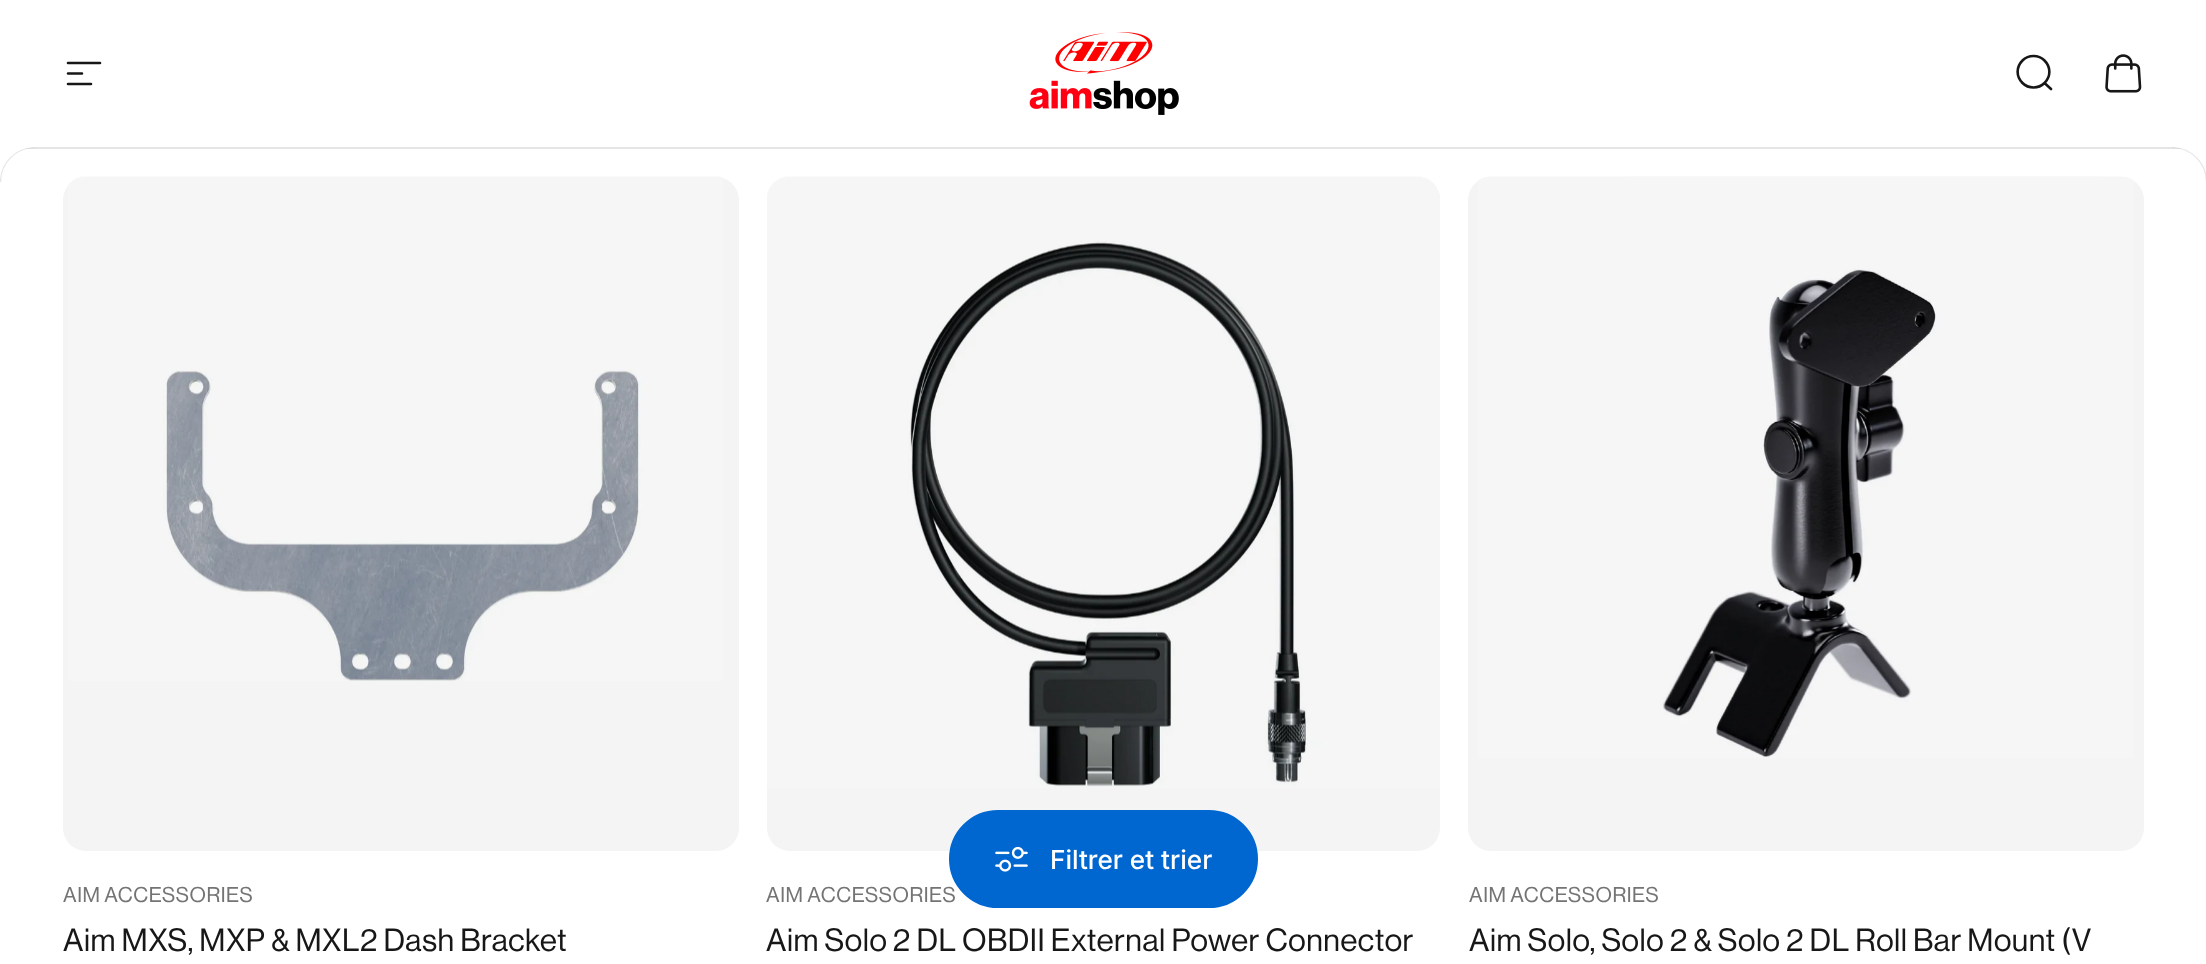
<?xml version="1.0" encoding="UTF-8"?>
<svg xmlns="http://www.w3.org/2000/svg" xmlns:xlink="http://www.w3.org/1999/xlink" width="2206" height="964">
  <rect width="100%" height="100%" fill="#ffffff" />
  <path d="M 68 63 h 32 m -32 10.5 h 14 m -14 10.5 h 23" fill="none" stroke="#171717" stroke-width="2.6" stroke-linecap="round" />
  <image x="1029" y="32" width="150" height="83" xlink:href="image1.png" />
  <path d="M 2051 89 l -6.5 -6 m 0 0 c 6.5 -6.5 6.5 -16 0 -22.5 c -6 -6 -16 -6 -22 0 c -6.5 6.5 -6.5 16 0 22.5 c 6 6 16 6 22 0 z" fill="none" stroke="#171717" stroke-width="2.6" stroke-linecap="round" />
  <image x="2105" y="54" width="37" height="39" xlink:href="image2.png" />
  <rect x="25" y="147" width="2157" height="2" fill="#e5e5e5" />
  <path d="M 35 147 h -35 v 35 h 0.5 c 0 -19 15.5 -34.5 34.5 -34.5 z" fill="#ffffff" fill-rule="evenodd" />
  <path d="M 0.5 182 c 0 -19 15.5 -34.5 34.5 -34.5" fill="none" stroke="#171717" stroke-opacity="0.11" stroke-width="1.2" />
  <path d="M 2172 147 h 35 v 35 h -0.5 c 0 -19 -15.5 -34.5 -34.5 -34.5 z" fill="#ffffff" fill-rule="evenodd" />
  <path d="M 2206.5 182 c 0 -19 -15.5 -34.5 -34.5 -34.5" fill="none" stroke="#171717" stroke-opacity="0.11" stroke-width="1.2" />
  <rect x="63" y="177" width="676" height="674" rx="23" fill="#f4f4f4" />
  <image x="68" y="176" width="655" height="505" xlink:href="image4.png" />
  <rect x="767" y="177" width="673" height="674" rx="23" fill="#f4f4f4" />
  <image x="767" y="176" width="673" height="612" xlink:href="image5.png" />
  <rect x="1468" y="177" width="676" height="674" rx="23" fill="#f4f4f4" />
  <image x="1478" y="176" width="656" height="582" xlink:href="image6.png" />
  <text x="63" y="902" style="font-family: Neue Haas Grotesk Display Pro; font-size: 21px; font-weight: 500; letter-spacing: 0.55px; fill: #747474">AIM ACCESSORIES</text>
  <text x="63" y="951" style="font-family: Neue Haas Grotesk Display Pro; font-size: 31.45px; font-weight: 500; letter-spacing: 0.55px; fill: #171717">Aim MXS, MXP &amp; MXL2 Dash Bracket</text>
  <text x="766" y="902" style="font-family: Neue Haas Grotesk Display Pro; font-size: 21px; font-weight: 500; letter-spacing: 0.55px; fill: #747474">AIM ACCESSORIES</text>
  <rect x="951" y="812" width="305" height="94" rx="47" fill="#0167d0" stroke="#0167d0" stroke-width="4" />
  <image x="995" y="846" width="33" height="26" xlink:href="image3.png" />
  <text x="1050" y="869" style="font-family: Inter; font-size: 26.25px; font-weight: 500; fill: #ffffff">Filtrer et trier</text>
  <text x="766" y="951" style="font-family: Neue Haas Grotesk Display Pro; font-size: 31.45px; font-weight: 500; letter-spacing: 0.55px; fill: #171717">Aim Solo 2 DL OBDII External Power Connector</text>
  <text x="1469" y="902" style="font-family: Neue Haas Grotesk Display Pro; font-size: 21px; font-weight: 500; letter-spacing: 0.55px; fill: #747474">AIM ACCESSORIES</text>
  <text x="1469" y="951" style="font-family: Neue Haas Grotesk Display Pro; font-size: 31.45px; font-weight: 500; letter-spacing: 0.55px; fill: #171717">Aim Solo, Solo 2 &amp; Solo 2 DL Roll Bar Mount (V</text>
</svg>
